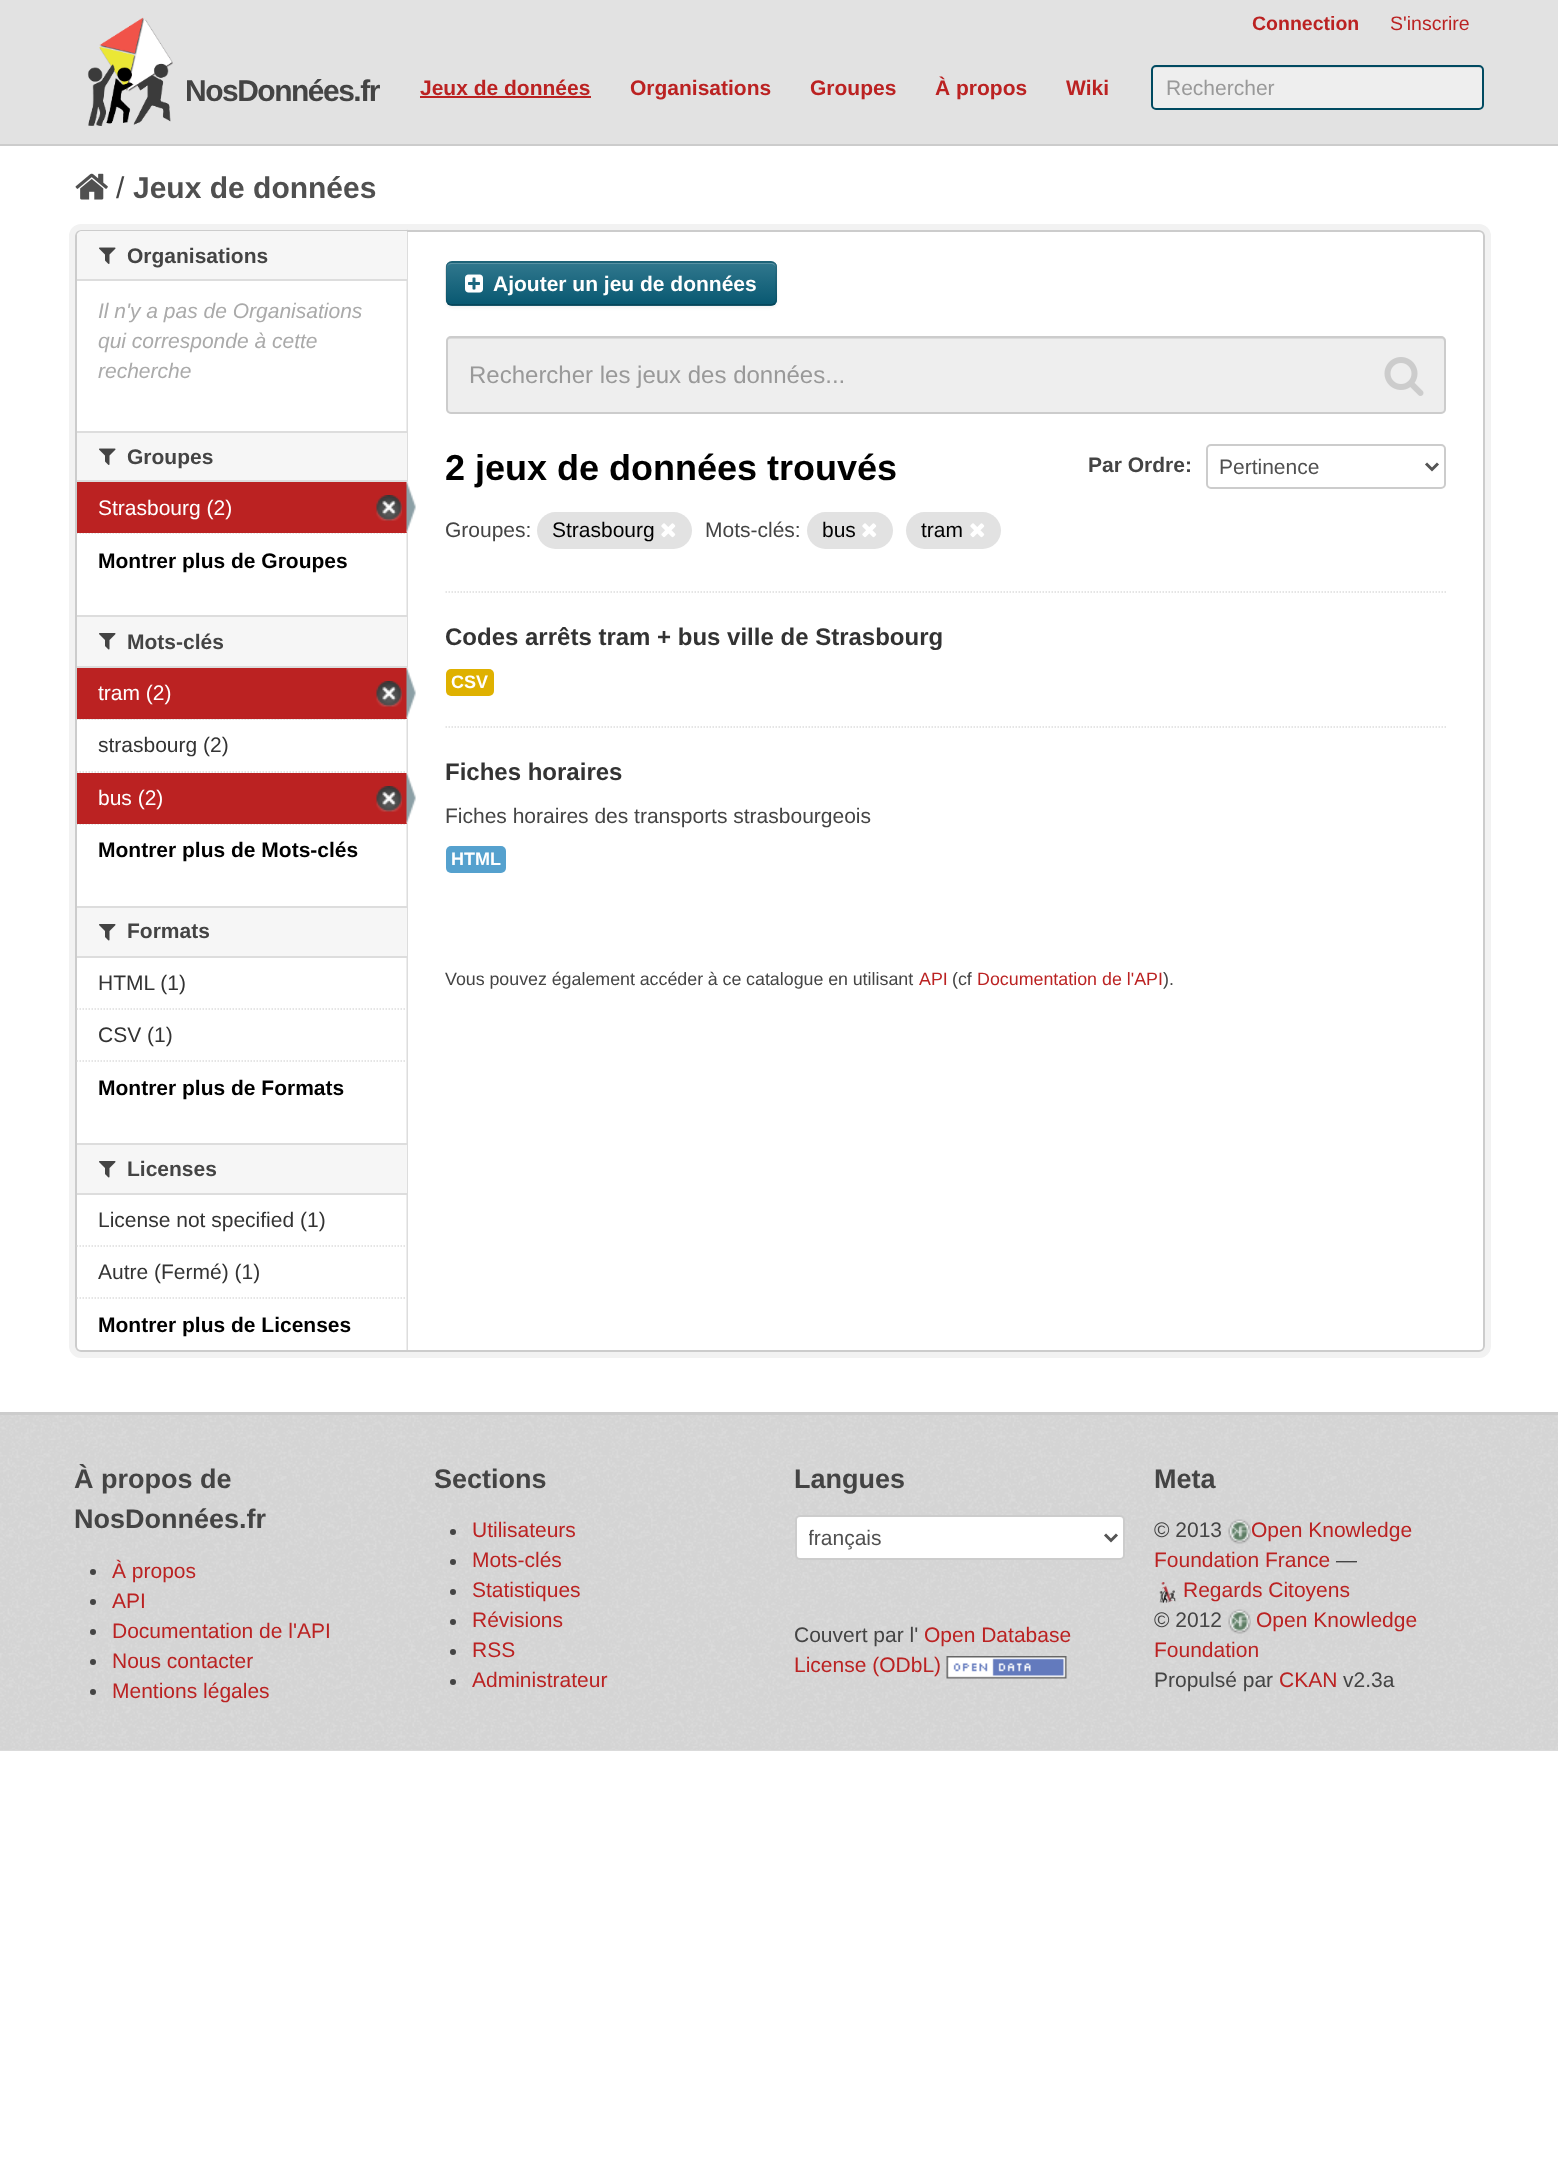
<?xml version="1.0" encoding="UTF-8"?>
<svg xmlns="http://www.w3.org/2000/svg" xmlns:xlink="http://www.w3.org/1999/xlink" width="1558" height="2161">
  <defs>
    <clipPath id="clip1"><rect x="446" y="261" width="331" height="45" rx="6" /></clipPath>
    <linearGradient id="g1" gradientUnits="userSpaceOnUse" x1="611" y1="263" x2="611" y2="305"><stop offset="0" stop-color="#30778d" /><stop offset="1" stop-color="#085871" /></linearGradient>
    <clipPath id="clip2"><rect x="809" y="1524" width="285" height="27" /></clipPath>
  </defs>
  <rect width="100%" height="100%" fill="#ffffff" />
  <rect width="1558" height="144" fill="#e2e2e2" />
  <rect y="144" width="1558" height="2" fill="#cccccc" />
  <image x="87" y="17" width="86" height="109" xlink:href="image1.png" />
  <rect x="420" y="96" width="171" height="2" fill="#bb2222" />
  <rect x="1151" y="65" width="333" height="45" rx="5" fill="#eeeeee" />
  <path d="M 1155 68 h 324 c 2 0 3 1 3 2 c 0 -2 -1 -4 -3 -4 h -324 c -2 0 -3 2 -3 4 c 0 -1 1 -2 3 -2 z" fill="#dcdcdc" />
  <rect x="1152" y="66" width="331" height="43" rx="4" fill="none" stroke="#004a61" stroke-width="2" />
  <image x="75" y="173" width="33" height="27" xlink:href="image2.png" />
  <rect x="72" y="227" width="1416" height="1128" rx="9" fill="none" stroke="#f2f2f2" stroke-width="6" />
  <rect x="75" y="230" width="1410" height="1122" rx="6" fill="#ffffff" />
  <image x="406" y="229" width="2" height="1121" xlink:href="image3.png" />
  <rect x="76" y="231" width="1408" height="1120" rx="5" fill="none" stroke="#cccccc" stroke-width="2" />
  <path d="M 82 231 h 325 v 50 h -330 v -45 c 0 -3 2 -5 5 -5 z" fill="#f6f6f6" />
  <rect x="77" y="279" width="330" height="2" fill="#dddddd" />
  <image x="99" y="247" width="17" height="17" xlink:href="image4.png" />
  <rect x="77" y="433" width="330" height="47" fill="#f6f6f6" />
  <rect x="77" y="431" width="330" height="2" fill="#dddddd" />
  <rect x="77" y="480" width="330" height="2" fill="#dddddd" />
  <image x="99" y="448" width="17" height="17" xlink:href="image4.png" />
  <path d="M 76.5 533 h 330" fill="none" stroke="#dddddd" stroke-width="1.5" stroke-dasharray="1.5 1.5" />
  <rect x="77" y="482" width="330" height="51" fill="#bb2222" />
  <image x="376" y="495" width="26" height="26" xlink:href="image5.png" />
  <image x="406" y="481" width="10" height="52" xlink:href="image6.png" />
  <rect x="77" y="617" width="330" height="49" fill="#f6f6f6" />
  <rect x="77" y="615" width="330" height="2" fill="#dddddd" />
  <rect x="77" y="666" width="330" height="2" fill="#dddddd" />
  <image x="99" y="633" width="17" height="17" xlink:href="image7.png" />
  <rect x="77" y="719" width="330" height="1" fill="#f6f6f6" />
  <path d="M 76.5 719 h 330" fill="none" stroke="#dddddd" stroke-width="1.5" stroke-dasharray="1.5 1.5" />
  <rect x="77" y="668" width="330" height="51" fill="#bb2222" />
  <image x="376" y="681" width="26" height="26" xlink:href="image5.png" />
  <image x="406" y="667" width="10" height="52" xlink:href="image6.png" />
  <path d="M 76.5 772 h 330" fill="none" stroke="#dddddd" stroke-width="1.5" stroke-dasharray="1.5 1.5" />
  <path d="M 76.5 824 h 330" fill="none" stroke="#dddddd" stroke-width="1.5" stroke-dasharray="1.5 1.5" />
  <rect x="77" y="773" width="330" height="51" fill="#bb2222" />
  <image x="376" y="786" width="26" height="26" xlink:href="image5.png" />
  <image x="406" y="772" width="10" height="52" xlink:href="image8.png" />
  <rect x="77" y="908" width="330" height="48" fill="#f6f6f6" />
  <rect x="77" y="906" width="330" height="2" fill="#dddddd" />
  <rect x="77" y="956" width="330" height="2" fill="#dddddd" />
  <image x="99" y="924" width="17" height="17" xlink:href="image7.png" />
  <path d="M 76.5 1009 h 330" fill="none" stroke="#dddddd" stroke-width="1.5" stroke-dasharray="1.5 1.5" />
  <path d="M 76.5 1061 h 330" fill="none" stroke="#dddddd" stroke-width="1.5" stroke-dasharray="1.5 1.5" />
  <rect x="77" y="1145" width="330" height="48" fill="#f6f6f6" />
  <rect x="77" y="1143" width="330" height="2" fill="#dddddd" />
  <rect x="77" y="1193" width="330" height="2" fill="#dddddd" />
  <image x="99" y="1161" width="17" height="17" xlink:href="image7.png" />
  <path d="M 76.5 1246 h 330" fill="none" stroke="#dddddd" stroke-width="1.5" stroke-dasharray="1.5 1.5" />
  <path d="M 76.5 1298 h 330" fill="none" stroke="#dddddd" stroke-width="1.5" stroke-dasharray="1.5 1.5" />
  <rect x="446" y="263" width="331" height="45" rx="6" fill="#000000" fill-opacity="0.05" filter="blur(1.5px)" />
  <rect x="446" y="261" width="331" height="45" rx="6" fill="#206b82" />
  <g clip-path="url(#clip1)">
    <rect x="446" y="263" width="331" height="42" fill="url(#g1)" />
  </g>
  <path d="M 452 264 h 319 c 2 0 5 2 5 4 c 0 -3 -2 -5 -5 -5 h -319 c -3 0 -5 2 -5 5 c 0 -2 2 -4 5 -4 z" fill="#5992a4" />
  <path d="M 774.5 303.5 c -1 1 -2 1.5 -3.5 1.5 h -319.5 c -1.5 0 -2.5 -0.5 -3.5 -1.5" fill="none" stroke="#000000" stroke-opacity="0.25" stroke-width="1.5" />
  <path d="M 448 303.5 c -3.5 -3 -2 -11 -2 -14.5 v -11 c 0 -4 -2 -16 5.5 -16 h 319.5 c 7.5 0 5 12 5 16 v 11 c 0 3.5 2 11.5 -1.5 14.5" fill="none" stroke="#000000" stroke-opacity="0.1" stroke-width="1.5" />
  <image x="465" y="274" width="18" height="19" xlink:href="image9.png" />
  <path d="M 445.5 592 h 1000.5" fill="none" stroke="#dddddd" stroke-width="1.5" stroke-dasharray="1.5 1.5" />
  <rect x="446" y="336" width="1000" height="78" rx="5" fill="#eeeeee" />
  <path d="M 450 339 h 992 c 1 0 2 1 2 3 v 70 c 1 0 1 -1 1 -2 v -69 c 0 -2 -1 -3 -3 -3 h -992 c -2 0 -3 1 -3 3 v 1 c 0 -2 1 -3 3 -3 z" fill="#dcdcdc" />
  <rect x="447" y="337" width="998" height="76" rx="4" fill="none" stroke="#cccccc" stroke-width="2" />
  <image x="1384" y="357" width="40" height="39" xlink:href="image10.png" />
  <rect x="1207" y="445" width="238" height="43" rx="4" fill="none" stroke="#cccccc" stroke-width="2" />
  <path d="M 1426 463.5 l 6 6 l 6 -6" fill="none" stroke="#555555" stroke-width="3" />
  <rect x="537" y="512" width="155" height="37" rx="18.5" fill="#e2e2e2" />
  <image x="661" y="523" width="15" height="15" xlink:href="image11.png" />
  <rect x="807" y="512" width="86" height="37" rx="18.5" fill="#e2e2e2" />
  <image x="862" y="523" width="15" height="15" xlink:href="image11.png" />
  <rect x="906" y="512" width="95" height="37" rx="18.5" fill="#e2e2e2" />
  <image x="970" y="523" width="15" height="15" xlink:href="image11.png" />
  <path d="M 445.5 727 h 1000.5" fill="none" stroke="#dddddd" stroke-width="1.5" stroke-dasharray="1.5 1.5" />
  <rect x="446" y="669" width="48" height="27" rx="5" fill="#dfb100" />
  <rect x="446" y="846" width="60" height="27" rx="5" fill="#55a1ce" />
  <rect y="1415" width="1558" height="336" fill="#dbdbdb" />
  <image x="0" y="1415" width="1558" height="335" xlink:href="image12.png" />
  <rect y="1412" width="1558" height="3" fill="#cccccc" />
  <circle cx="93" cy="1572" r="3" fill="#444444" />
  <circle cx="93" cy="1602" r="3" fill="#444444" />
  <circle cx="93" cy="1632" r="3" fill="#444444" />
  <circle cx="93" cy="1662" r="3" fill="#444444" />
  <circle cx="93" cy="1692" r="3" fill="#444444" />
  <circle cx="453" cy="1532" r="3" fill="#444444" />
  <circle cx="453" cy="1562" r="3" fill="#444444" />
  <circle cx="453" cy="1592" r="3" fill="#444444" />
  <circle cx="453" cy="1622" r="3" fill="#444444" />
  <circle cx="453" cy="1652" r="3" fill="#444444" />
  <circle cx="453" cy="1682" r="3" fill="#444444" />
  <rect x="796" y="1516" width="328" height="43" rx="4" fill="#ffffff" stroke="#cccccc" stroke-width="2" />
  <path d="M 1105 1534.5 l 6 6 l 6 -6" fill="none" stroke="#555555" stroke-width="3" />
  <image x="946" y="1656" width="121" height="23" xlink:href="image13.png" />
  <image x="1228" y="1519" width="23" height="25" xlink:href="image14.png" />
  <image x="1159" y="1582" width="17" height="21" xlink:href="image15.png" />
  <image x="1228" y="1609" width="23" height="25" xlink:href="image16.png" />
  <text x="1252" y="30" style="font-family: Liberation Sans; font-size: 19.5px; font-weight: bold; fill: #bb2222">Connection</text>
  <text x="1390" y="30" style="font-family: Liberation Sans; font-size: 19.5px; fill: #bb2222">S'inscrire</text>
  <text x="185" y="101" style="font-family: Liberation Sans; font-size: 30px; font-weight: bold; letter-spacing: -1.5px; fill: #444444">NosDonnées.fr</text>
  <text x="420" y="95" style="font-family: Liberation Sans; font-size: 21px; font-weight: bold; fill: #bb2222">Jeux de données</text>
  <text x="630" y="95" style="font-family: Liberation Sans; font-size: 21px; font-weight: bold; fill: #bb2222">Organisations</text>
  <text x="810" y="95" style="font-family: Liberation Sans; font-size: 21px; font-weight: bold; fill: #bb2222">Groupes</text>
  <text x="935" y="95" style="font-family: Liberation Sans; font-size: 21px; font-weight: bold; fill: #bb2222">À propos</text>
  <text x="1066" y="95" style="font-family: Liberation Sans; font-size: 21px; font-weight: bold; fill: #bb2222">Wiki</text>
  <text x="1166" y="95" style="font-family: Liberation Sans; font-size: 21px; fill: #999999">Rechercher</text>
  <text x="116" y="198" style="font-family: Liberation Sans; font-size: 30px; fill: #444444">/</text>
  <text x="133" y="198" style="font-family: Liberation Sans; font-size: 30px; font-weight: bold; fill: #505050">Jeux de données</text>
  <text x="127" y="263" style="font-family: Liberation Sans; font-size: 21px; font-weight: bold; fill: #444444">Organisations</text>
  <text x="98" y="318" style="font-family: Liberation Sans; font-size: 21px; font-style: italic; fill: #aaaaaa">Il n'y a pas de Organisations</text>
  <text x="98" y="348" style="font-family: Liberation Sans; font-size: 21px; font-style: italic; fill: #aaaaaa">qui corresponde à cette</text>
  <text x="98" y="378" style="font-family: Liberation Sans; font-size: 21px; font-style: italic; fill: #aaaaaa">recherche</text>
  <text x="127" y="464" style="font-family: Liberation Sans; font-size: 21px; font-weight: bold; fill: #444444">Groupes</text>
  <text x="98" y="515" style="font-family: Liberation Sans; font-size: 21px; fill: #ffffff">Strasbourg (2)</text>
  <text x="98" y="568" style="font-family: Liberation Sans; font-size: 21px; font-weight: bold; fill: #000000">Montrer plus de Groupes</text>
  <text x="127" y="649" style="font-family: Liberation Sans; font-size: 21px; font-weight: bold; fill: #444444">Mots-clés</text>
  <text x="98" y="700" style="font-family: Liberation Sans; font-size: 21px; fill: #ffffff">tram (2)</text>
  <text x="98" y="752" style="font-family: Liberation Sans; font-size: 21px; fill: #333333">strasbourg (2)</text>
  <text x="98" y="805" style="font-family: Liberation Sans; font-size: 21px; fill: #ffffff">bus (2)</text>
  <text x="98" y="857" style="font-family: Liberation Sans; font-size: 21px; font-weight: bold; fill: #000000">Montrer plus de Mots-clés</text>
  <text x="127" y="938" style="font-family: Liberation Sans; font-size: 21px; font-weight: bold; fill: #444444">Formats</text>
  <text x="98" y="990" style="font-family: Liberation Sans; font-size: 21px; fill: #333333">HTML (1)</text>
  <text x="98" y="1042" style="font-family: Liberation Sans; font-size: 21px; fill: #333333">CSV (1)</text>
  <text x="98" y="1095" style="font-family: Liberation Sans; font-size: 21px; font-weight: bold; fill: #000000">Montrer plus de Formats</text>
  <text x="127" y="1176" style="font-family: Liberation Sans; font-size: 21px; font-weight: bold; fill: #444444">Licenses</text>
  <text x="98" y="1227" style="font-family: Liberation Sans; font-size: 21px; fill: #333333">License not specified (1)</text>
  <text x="98" y="1279" style="font-family: Liberation Sans; font-size: 21px; fill: #333333">Autre (Fermé) (1)</text>
  <text x="98" y="1332" style="font-family: Liberation Sans; font-size: 21px; font-weight: bold; fill: #000000">Montrer plus de Licenses</text>
  <text x="493" y="291" style="font-family: Liberation Sans; font-size: 21px; font-weight: bold; fill: #ffffff">Ajouter un jeu de données</text>
  <text x="469" y="383" style="font-family: Liberation Sans; font-size: 24px; fill: #999999">Rechercher les jeux des données...</text>
  <text x="445" y="480" style="font-family: Liberation Sans; font-size: 36px; font-weight: bold; fill: #000000">2 jeux de données trouvés</text>
  <text x="1088" y="472" style="font-family: Liberation Sans; font-size: 21px; font-weight: bold; fill: #444444">Par Ordre:</text>
  <text x="1219" y="474" style="font-family: Liberation Sans; font-size: 21px; fill: #505050">Pertinence</text>
  <text x="445" y="537" style="font-family: Liberation Sans; font-size: 21px; fill: #444444">Groupes:</text>
  <text x="552" y="537" style="font-family: Liberation Sans; font-size: 21px; fill: #000000">Strasbourg</text>
  <text x="705" y="537" style="font-family: Liberation Sans; font-size: 21px; fill: #444444">Mots-clés:</text>
  <text x="822" y="537" style="font-family: Liberation Sans; font-size: 21px; fill: #000000">bus</text>
  <text x="921" y="537" style="font-family: Liberation Sans; font-size: 21px; fill: #000000">tram</text>
  <text x="445" y="645" style="font-family: Liberation Sans; font-size: 24px; font-weight: bold; fill: #333333">Codes arrêts tram + bus ville de Strasbourg</text>
  <text x="451" y="688" style="font-family: Liberation Sans; font-size: 18px; font-weight: bold; fill: #ffffff">CSV</text>
  <text x="445" y="780" style="font-family: Liberation Sans; font-size: 24px; font-weight: bold; fill: #333333">Fiches horaires</text>
  <text x="445" y="823" style="font-family: Liberation Sans; font-size: 21px; fill: #444444">Fiches horaires des transports strasbourgeois</text>
  <text x="451" y="865" style="font-family: Liberation Sans; font-size: 18px; font-weight: bold; fill: #ffffff">HTML</text>
  <text x="445" y="985" word-spacing="-0.25" style="font-family: Liberation Sans; font-size: 17.85px; fill: #444444">Vous pouvez également accéder à ce catalogue en utilisant</text>
  <text x="919" y="985" style="font-family: Liberation Sans; font-size: 17.85px; fill: #bb2222">API</text>
  <text x="952" y="985" style="font-family: Liberation Sans; font-size: 17.85px; fill: #444444">(cf</text>
  <text x="977" y="985" style="font-family: Liberation Sans; font-size: 17.85px; fill: #bb2222">Documentation de l'API</text>
  <text x="1163" y="985" style="font-family: Liberation Sans; font-size: 17.85px; fill: #444444">).</text>
  <text x="74" y="1488" style="font-family: Liberation Sans; font-size: 27px; font-weight: bold; fill: #444444">À propos de</text>
  <text x="74" y="1528" style="font-family: Liberation Sans; font-size: 27px; font-weight: bold; fill: #444444">NosDonnées.fr</text>
  <text x="112" y="1578" style="font-family: Liberation Sans; font-size: 21px; fill: #bb2222">À propos</text>
  <text x="112" y="1608" style="font-family: Liberation Sans; font-size: 21px; fill: #bb2222">API</text>
  <text x="112" y="1638" style="font-family: Liberation Sans; font-size: 21px; fill: #bb2222">Documentation de l'API</text>
  <text x="112" y="1668" style="font-family: Liberation Sans; font-size: 21px; fill: #bb2222">Nous contacter</text>
  <text x="112" y="1698" style="font-family: Liberation Sans; font-size: 21px; fill: #bb2222">Mentions légales</text>
  <text x="434" y="1488" style="font-family: Liberation Sans; font-size: 27px; font-weight: bold; fill: #444444">Sections</text>
  <text x="472" y="1537" style="font-family: Liberation Sans; font-size: 21px; fill: #bb2222">Utilisateurs</text>
  <text x="472" y="1567" style="font-family: Liberation Sans; font-size: 21px; fill: #bb2222">Mots-clés</text>
  <text x="472" y="1597" style="font-family: Liberation Sans; font-size: 21px; fill: #bb2222">Statistiques</text>
  <text x="472" y="1627" style="font-family: Liberation Sans; font-size: 21px; fill: #bb2222">Révisions</text>
  <text x="472" y="1657" style="font-family: Liberation Sans; font-size: 21px; fill: #bb2222">RSS</text>
  <text x="472" y="1687" style="font-family: Liberation Sans; font-size: 21px; fill: #bb2222">Administrateur</text>
  <text x="794" y="1488" style="font-family: Liberation Sans; font-size: 27px; font-weight: bold; fill: #444444">Langues</text>
  <g clip-path="url(#clip2)">
    <text x="808" y="1545" style="font-family: Liberation Sans; font-size: 21px; fill: #505050">français</text>
  </g>
  <text x="794" y="1642" style="font-family: Liberation Sans; font-size: 21px; fill: #444444">Couvert par l'</text>
  <text x="924" y="1642" style="font-family: Liberation Sans; font-size: 21px; fill: #bb2222">Open Database</text>
  <text x="794" y="1672" style="font-family: Liberation Sans; font-size: 21px; fill: #bb2222">License (ODbL)</text>
  <text x="1154" y="1488" style="font-family: Liberation Sans; font-size: 27px; font-weight: bold; fill: #444444">Meta</text>
  <text x="1154" y="1537" style="font-family: Liberation Sans; font-size: 21px; fill: #444444">© 2013</text>
  <text x="1251" y="1537" style="font-family: Liberation Sans; font-size: 21px; fill: #bb2222">Open Knowledge</text>
  <text x="1154" y="1567" style="font-family: Liberation Sans; font-size: 21px; fill: #bb2222">Foundation France</text>
  <text x="1336" y="1567" style="font-family: Liberation Sans; font-size: 21px; fill: #444444">—</text>
  <text x="1183" y="1597" style="font-family: Liberation Sans; font-size: 21px; fill: #bb2222">Regards Citoyens</text>
  <text x="1154" y="1627" style="font-family: Liberation Sans; font-size: 21px; fill: #444444">© 2012</text>
  <text x="1256" y="1627" style="font-family: Liberation Sans; font-size: 21px; fill: #bb2222">Open Knowledge</text>
  <text x="1154" y="1657" style="font-family: Liberation Sans; font-size: 21px; fill: #bb2222">Foundation</text>
  <text x="1154" y="1687" style="font-family: Liberation Sans; font-size: 21px; fill: #444444">Propulsé par</text>
  <text x="1279" y="1687" style="font-family: Liberation Sans; font-size: 21px; fill: #bb2222">CKAN</text>
  <text x="1343" y="1687" style="font-family: Liberation Sans; font-size: 21px; fill: #444444">v2.3a</text>
</svg>
